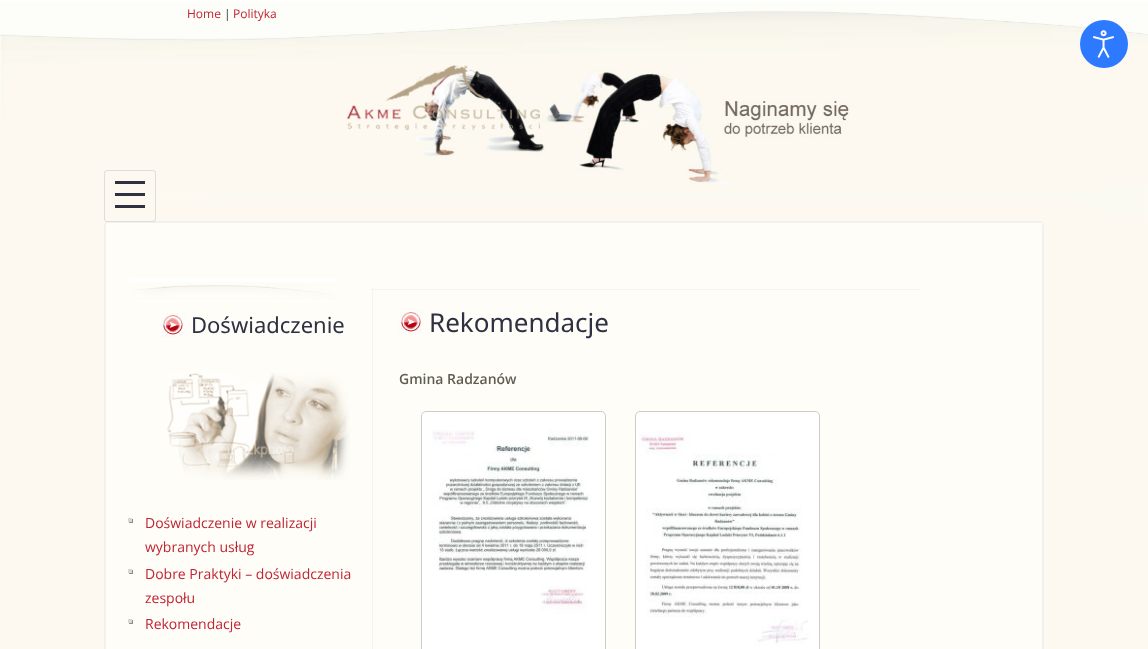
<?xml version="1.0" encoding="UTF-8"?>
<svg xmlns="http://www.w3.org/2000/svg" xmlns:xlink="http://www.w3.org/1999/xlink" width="1148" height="649">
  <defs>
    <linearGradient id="g1" gradientUnits="userSpaceOnUse" x1="104" y1="196" x2="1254" y2="196"><stop offset="0" stop-color="#fdf9f0" /><stop offset="0.15" stop-color="#fafaf2" /><stop offset="0.85" stop-color="#fafaf2" /><stop offset="1" stop-color="#fdf9f0" /></linearGradient>
  </defs>
  <rect width="100%" height="100%" fill="#fdf9f0" />
  <path d="M 104 194 h 958 c 64 0 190 -63 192 1 c 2 67 -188 3 -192 3 h -958 z" fill="url(#g1)" />
  <image x="0" y="0" width="1148" height="184" xlink:href="image1.png" />
  <image x="347" y="65" width="193" height="65" xlink:href="image2.png" />
  <path d="M 109 221 h 930 c 3 0 5 2 5 5 v 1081 h -940 v -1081 c 0 -3 2 -5 5 -5 z m 0 2 h 930 c 2 0 3 1 3 3 v 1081 h -936 v -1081 c 0 -2 1 -3 3 -3 z" fill="#f3f1eb" fill-rule="evenodd" />
  <rect x="104.5" y="170.5" width="51" height="51" rx="2.5" fill="none" stroke="#dddddd" />
  <rect x="115" y="181" width="30" height="3" fill="#2d3142" />
  <rect x="115" y="193" width="30" height="3" fill="#2d3142" />
  <rect x="115" y="205" width="30" height="3" fill="#2d3142" />
  <rect x="106" y="223" width="936" height="426" fill="#fefdf8" />
  <rect x="372" y="288" width="1" height="361" fill="#f6f4ed" />
  <rect x="131" y="278" width="208" height="24" fill="#ffffff" />
  <image x="131" y="282" width="208" height="19" xlink:href="image3.png" />
  <image x="161" y="313" width="24" height="24" xlink:href="image4.png" />
  <image x="167" y="373" width="183" height="107" xlink:href="image5.png" />
  <image x="128" y="518" width="5" height="5" xlink:href="image6.png" />
  <image x="128" y="569" width="5" height="5" xlink:href="image6.png" />
  <image x="128" y="619" width="5" height="5" xlink:href="image6.png" />
  <rect x="371" y="289" width="550" height="1" fill="#f6f4ed" />
  <rect x="372" y="289" width="1" height="1" fill="#f2eee6" />
  <image x="399" y="310" width="24" height="24" xlink:href="image4.png" />
  <rect x="421.5" y="411.5" width="184" height="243" rx="4.5" fill="#ffffff" stroke="#cccccc" />
  <image x="432" y="430" width="159" height="184" xlink:href="image7.png" />
  <rect x="635.5" y="411.5" width="184" height="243" rx="4.5" fill="#ffffff" stroke="#cccccc" />
  <image x="639" y="431" width="170" height="214" xlink:href="image8.png" />
  <circle cx="1104" cy="44" r="24" fill="#2d79ff" />
  <image x="1093" y="30" width="21" height="28" xlink:href="image9.png" />
  <text x="187" y="18" style="font-family: Open Sans; font-size: 12px; fill: #c02432">Home</text>
  <text x="224" y="18" style="font-family: Open Sans; font-size: 12px; fill: #333333">|</text>
  <text x="233" y="18" style="font-family: Open Sans; font-size: 12px; fill: #c02432">Polityka</text>
  <text x="191" y="333" style="font-family: Noto Sans; font-size: 22px; fill: #2d3142">Doświadczenie</text>
  <text x="145" y="528" style="font-family: Open Sans; font-size: 14px; fill: #c02432">Doświadczenie w realizacji</text>
  <text x="145" y="552" style="font-family: Open Sans; font-size: 14px; fill: #c02432">wybranych usług</text>
  <text x="145" y="579" style="font-family: Open Sans; font-size: 14px; fill: #c02432">Dobre Praktyki – doświadczenia</text>
  <text x="145" y="603" style="font-family: Open Sans; font-size: 14px; fill: #c02432">zespołu</text>
  <text x="145" y="629" style="font-family: Open Sans; font-size: 14px; fill: #c02432">Rekomendacje</text>
  <text x="429" y="332" style="font-family: Noto Sans; font-size: 26px; fill: #2d3142">Rekomendacje</text>
  <text x="399" y="384" style="font-family: Open Sans; font-size: 14px; font-weight: 600; fill: #605d53">Gmina Radzanów</text>
</svg>
